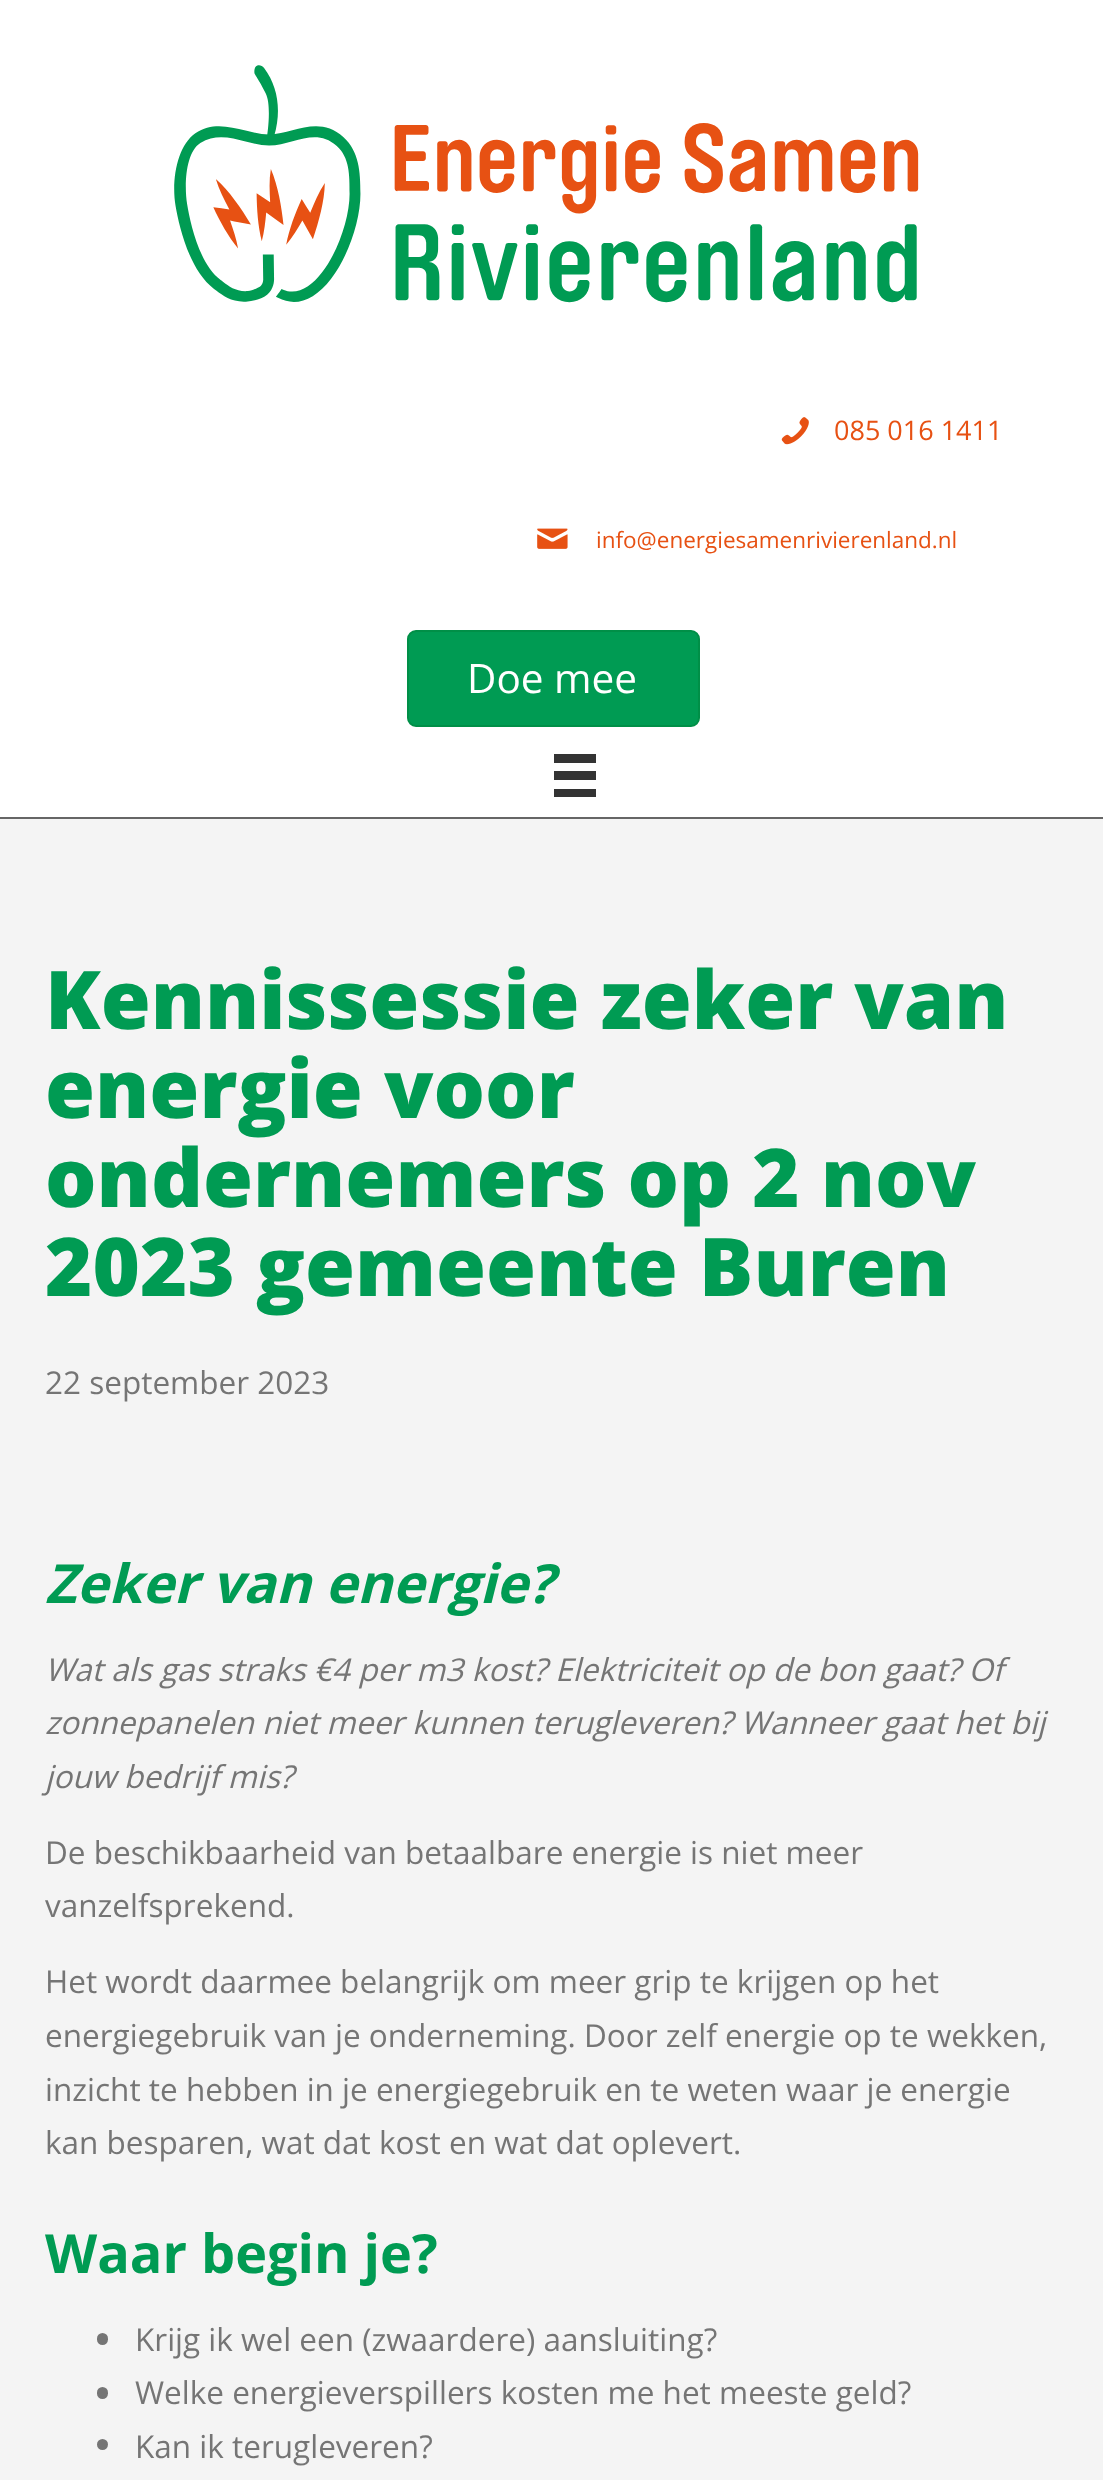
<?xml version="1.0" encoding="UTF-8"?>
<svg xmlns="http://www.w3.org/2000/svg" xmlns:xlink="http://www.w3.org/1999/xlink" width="1103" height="2480">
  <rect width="100%" height="100%" fill="#ffffff" />
  <image x="174" y="65" width="745" height="238" xlink:href="image1.png" />
  <image x="781" y="417" width="28" height="28" xlink:href="image2.png" />
  <image x="537" y="528" width="31" height="21" xlink:href="image3.png" />
  <rect x="408" y="631" width="291" height="95" rx="8" fill="#009b53" stroke="#008f47" stroke-width="2" />
  <rect x="554" y="754" width="42" height="9" fill="#333333" />
  <rect x="554" y="771" width="42" height="9" fill="#333333" />
  <rect x="554" y="789" width="42" height="8" fill="#333333" />
  <rect y="817" width="1103" height="2" fill="#666666" />
  <rect y="819" width="1103" height="1661" fill="#f4f4f4" />
  <rect x="97" y="2333" width="11" height="12" rx="5.5" fill="#757575" />
  <rect x="97" y="2387" width="11" height="12" rx="5.5" fill="#757575" />
  <circle cx="102.5" cy="2444.5" r="5.5" fill="#757575" />
  <text x="834" y="440" style="font-family: Open Sans; font-size: 27px; fill: #e75113">085 016 1411</text>
  <text x="596" y="548" style="font-family: Open Sans; font-size: 22.5px; fill: #e75113">info@energiesamenrivierenland.nl</text>
  <text x="467" y="693" style="font-family: Open Sans; font-size: 40.5px; fill: #ffffff">Doe mee</text>
  <text x="45" y="1029" style="font-family: Open Sans; font-size: 81px; font-weight: 800; fill: #009b53">Kennissessie zeker van</text>
  <text x="45" y="1118" style="font-family: Open Sans; font-size: 81px; font-weight: 800; fill: #009b53">energie voor</text>
  <text x="45" y="1207" style="font-family: Open Sans; font-size: 81px; font-weight: 800; fill: #009b53">ondernemers op 2 nov</text>
  <text x="45" y="1296" style="font-family: Open Sans; font-size: 81px; font-weight: 800; fill: #009b53">2023 gemeente Buren</text>
  <text x="45" y="1394" style="font-family: Open Sans; font-size: 31.5px; fill: #757575">22 september 2023</text>
  <text x="45" y="1603" style="font-family: Open Sans; font-size: 54px; font-weight: bold; font-style: italic; fill: #009b53">Zeker van energie?</text>
  <text x="45" y="1681" style="font-family: Open Sans; font-size: 31.5px; font-style: italic; fill: #757575">Wat als gas straks €4 per m3 kost? Elektriciteit op de bon gaat? Of</text>
  <text x="45" y="1734" style="font-family: Open Sans; font-size: 31.5px; font-style: italic; fill: #757575">zonnepanelen niet meer kunnen terugleveren? Wanneer gaat het bij</text>
  <text x="45" y="1788" style="font-family: Open Sans; font-size: 31.5px; font-style: italic; fill: #757575">jouw bedrijf mis?</text>
  <text x="45" y="1864" style="font-family: Open Sans; font-size: 31.5px; fill: #757575">De beschikbaarheid van betaalbare energie is niet meer</text>
  <text x="45" y="1917" style="font-family: Open Sans; font-size: 31.5px; fill: #757575">vanzelfsprekend.</text>
  <text x="45" y="1993" style="font-family: Open Sans; font-size: 31.5px; fill: #757575">Het wordt daarmee belangrijk om meer grip te krijgen op het</text>
  <text x="45" y="2047" style="font-family: Open Sans; font-size: 31.5px; fill: #757575">energiegebruik van je onderneming. Door zelf energie op te wekken,</text>
  <text x="45" y="2101" style="font-family: Open Sans; font-size: 31.5px; fill: #757575">inzicht te hebben in je energiegebruik en te weten waar je energie</text>
  <text x="45" y="2154" style="font-family: Open Sans; font-size: 31.5px; fill: #757575">kan besparen, wat dat kost en wat dat oplevert.</text>
  <text x="45" y="2273" style="font-family: Open Sans; font-size: 54px; font-weight: bold; fill: #009b53">Waar begin je?</text>
  <text x="135" y="2351" style="font-family: Open Sans; font-size: 31.5px; fill: #757575">Krijg ik wel een (zwaardere) aansluiting?</text>
  <text x="135" y="2404" style="font-family: Open Sans; font-size: 31.5px; fill: #757575">Welke energieverspillers kosten me het meeste geld?</text>
  <text x="135" y="2458" style="font-family: Open Sans; font-size: 31.5px; fill: #757575">Kan ik terugleveren?</text>
</svg>
